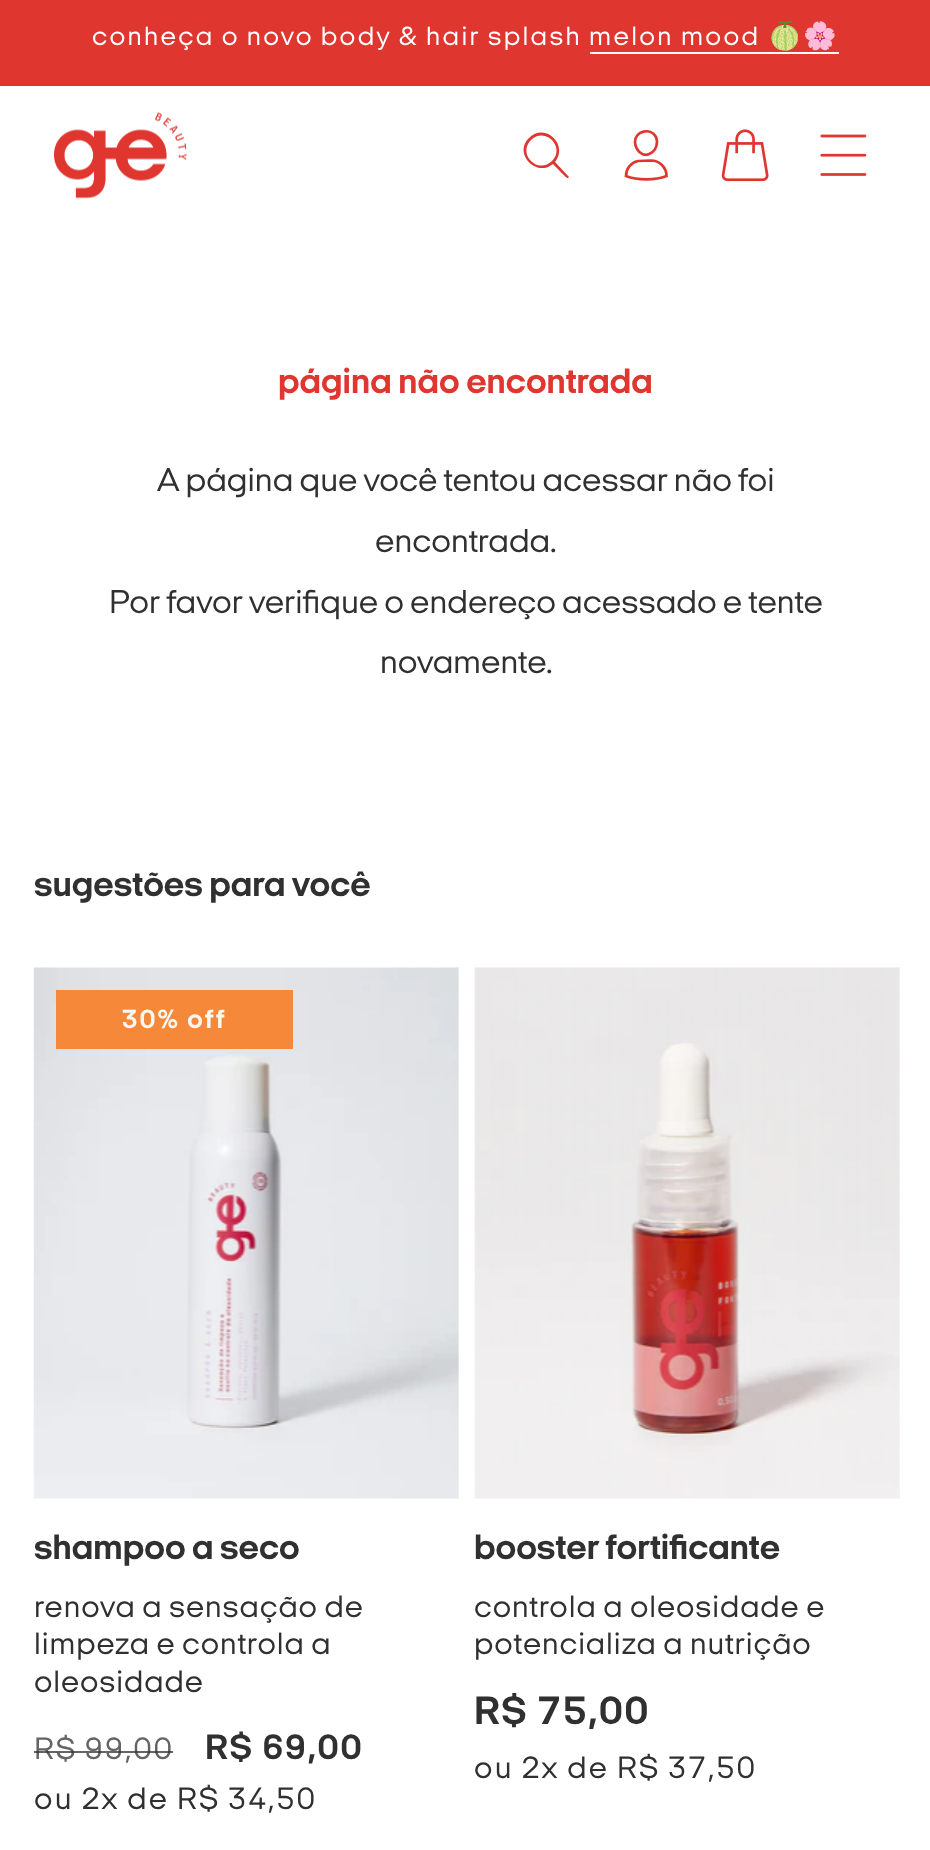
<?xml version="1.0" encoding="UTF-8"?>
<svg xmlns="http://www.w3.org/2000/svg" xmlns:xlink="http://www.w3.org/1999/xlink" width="930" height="1850">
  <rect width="100%" height="100%" fill="#ffffff" />
  <rect width="930" height="86" fill="#df3630" />
  <rect x="590" y="52" width="249" height="2" fill="#ffffff" />
  <image x="54" y="112" width="133" height="87" xlink:href="image1.png" />
  <path d="M 552 161 c -14 14 -35 -7 -21 -21 c 14 -14 35 7 21 21 z m 1 3 c -17 14 -40 -11 -24 -26 c 16 -16 40 7 26 24 l 14 15 l -1 1 c -1 1 -13 -12 -15 -14 z" fill="#df3630" fill-rule="evenodd" />
  <path d="M 651 160.5 l -13 0.5 c -7 1.5 -12 7.5 -12 15 c 11 4.5 29.5 4.5 40.5 0 c 0 -8.5 -7 -15.5 -15.5 -15.5 z m -16 -18.5 c 0 -11 15.5 -15 21 -5 c 0.5 1.5 1 3.5 1 5 c -0.5 11.5 -13.5 18 -20 7 c -1 -2 -2 -4.5 -2 -7 z" fill="none" stroke="#df3630" stroke-width="2.7" stroke-linecap="square" />
  <image x="721" y="129" width="48" height="53" xlink:href="image2.png" />
  <image x="820" y="134" width="47" height="42" xlink:href="image3.png" />
  <image x="33" y="967" width="426" height="532" xlink:href="image4.png" />
  <rect x="56" y="990" width="237" height="59" fill="#f58939" />
  <image x="474" y="967" width="426" height="532" xlink:href="image5.png" />
  <text x="92" y="45" style="font-family: 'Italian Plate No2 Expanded'; font-size: 27px; letter-spacing: 2.25px; fill: #ffffff">conheça o novo body &amp; hair splash melon mood</text>
  <text x="768" y="45" style="font-family: Noto Color Emoji; font-size: 27px; letter-spacing: 2.25px; fill: #ffffff">🍈🌸</text>
  <text x="278" y="393" style="font-family: 'Italian Plate No2 Expanded'; font-size: 36px; font-weight: bold; fill: #df3630">página não encontrada</text>
  <text x="157" y="491" style="font-family: 'Italian Plate No2 Expanded'; font-size: 33.75px; fill: #303030">A página que você tentou acessar não foi</text>
  <text x="375" y="552" style="font-family: 'Italian Plate No2 Expanded'; font-size: 33.75px; fill: #303030">encontrada.</text>
  <text x="109" y="613" style="font-family: 'Italian Plate No2 Expanded'; font-size: 33.75px; fill: #303030">Por favor verifique o endereço acessado e tente</text>
  <text x="380" y="673" style="font-family: 'Italian Plate No2 Expanded'; font-size: 33.75px; fill: #303030">novamente.</text>
  <text x="34" y="896" style="font-family: 'Italian Plate No2 Expanded'; font-size: 36px; font-weight: bold; fill: #303030">sugestões para você</text>
  <text x="122" y="1028" style="font-family: 'Italian Plate No2 Expanded'; font-size: 27px; font-weight: bold; letter-spacing: 2.25px; fill: #f8f7f3">30% off</text>
  <text x="34" y="1559" style="font-family: 'Italian Plate No2 Expanded'; font-size: 36px; font-weight: bold; fill: #303030">shampoo a seco</text>
  <text x="34" y="1617" style="font-family: 'Italian Plate No2 Expanded'; font-size: 31.5px; letter-spacing: 0.9px; fill: #303030">renova a sensação de</text>
  <text x="34" y="1654" style="font-family: 'Italian Plate No2 Expanded'; font-size: 31.5px; letter-spacing: 0.9px; fill: #303030">limpeza e controla a</text>
  <text x="34" y="1692" style="font-family: 'Italian Plate No2 Expanded'; font-size: 31.5px; letter-spacing: 0.9px; fill: #303030">oleosidade</text>
  <text x="34" y="1759" style="font-family: 'Italian Plate No2 Expanded'; font-size: 31.5px; letter-spacing: 2.25px; fill: #646464">R$ 99,00</text>
  <rect x="34" y="1751" width="139" height="2" fill="#303030" fill-opacity="0.75" />
  <text x="205" y="1759" style="font-family: 'Italian Plate No2 Expanded'; font-size: 36px; font-weight: bold; letter-spacing: 2.25px; fill: #303030">R$ 69,00</text>
  <text x="34" y="1809" style="font-family: 'Italian Plate No2 Expanded'; font-size: 31.5px; letter-spacing: 2.25px; fill: #303030">ou 2x de R$ 34,50</text>
  <text x="474" y="1559" style="font-family: 'Italian Plate No2 Expanded'; font-size: 36px; font-weight: bold; fill: #303030">booster fortificante</text>
  <text x="474" y="1617" style="font-family: 'Italian Plate No2 Expanded'; font-size: 31.5px; letter-spacing: 0.9px; fill: #303030">controla a oleosidade e</text>
  <text x="474" y="1654" style="font-family: 'Italian Plate No2 Expanded'; font-size: 31.5px; letter-spacing: 0.9px; fill: #303030">potencializa a nutrição</text>
  <text x="474" y="1724" style="font-family: 'Italian Plate No2 Expanded'; font-size: 40.5px; font-weight: bold; letter-spacing: 2.25px; fill: #303030">R$ 75,00</text>
  <text x="474" y="1778" style="font-family: 'Italian Plate No2 Expanded'; font-size: 31.5px; letter-spacing: 2.25px; fill: #303030">ou 2x de R$ 37,50</text>
</svg>
